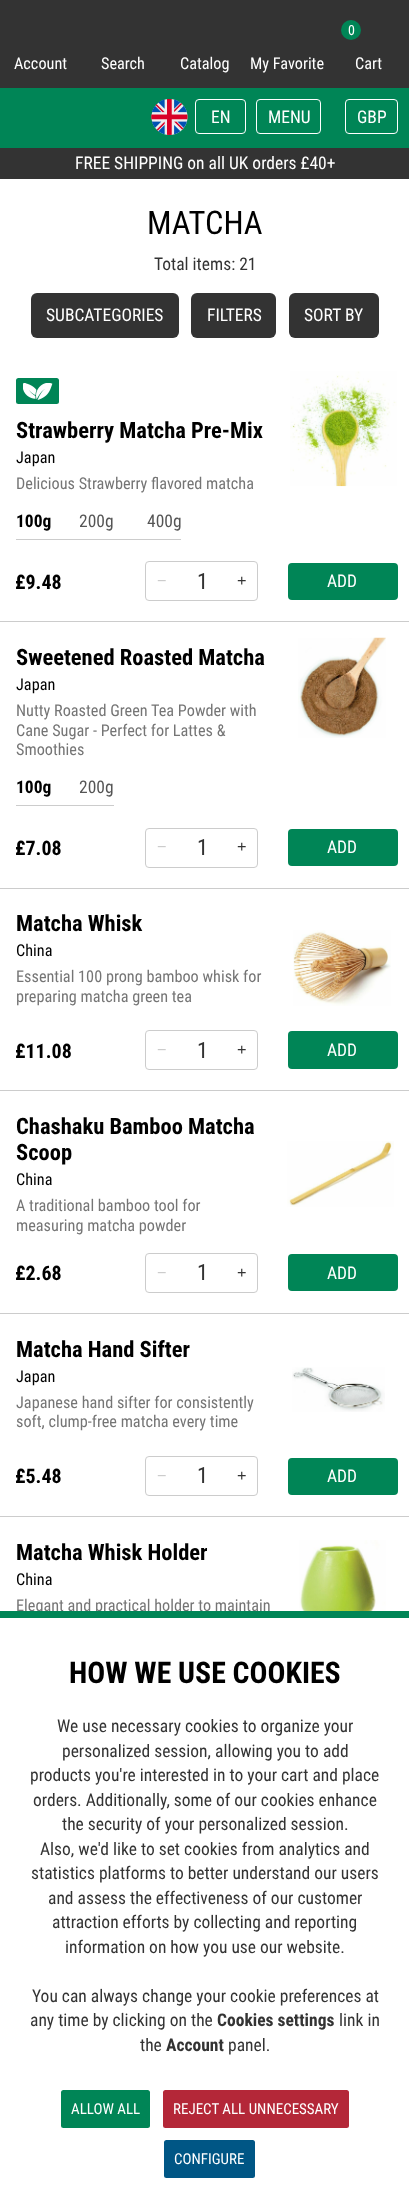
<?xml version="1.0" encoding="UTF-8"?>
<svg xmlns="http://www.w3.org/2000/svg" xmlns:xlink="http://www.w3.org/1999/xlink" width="409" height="2212">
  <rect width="100%" height="100%" fill="#ffffff" />
  <rect width="409" height="88" fill="#333333" />
  <circle cx="351" cy="30" r="10" fill="#008556" />
  <rect y="88" width="409" height="60" fill="#008556" />
  <image x="151" y="99" width="37" height="36" xlink:href="image1.png" />
  <rect x="195.5" y="99.5" width="50" height="34" rx="3.5" fill="none" stroke="#ffffff" />
  <rect x="256.5" y="99.5" width="64" height="34" rx="3.5" fill="none" stroke="#ffffff" />
  <rect x="345.5" y="99.5" width="52" height="34" rx="3.5" fill="none" stroke="#ffffff" />
  <rect y="148" width="409" height="31" fill="#333333" />
  <rect x="31" y="293" width="148" height="45" rx="6" fill="#333333" />
  <rect x="191" y="293" width="85" height="45" rx="6" fill="#333333" />
  <rect x="289" y="293" width="90" height="45" rx="6" fill="#333333" />
  <rect y="621" width="409" height="1" fill="#cccccc" />
  <rect x="16" y="378" width="43" height="26" rx="2.5" fill="#008556" />
  <image x="23" y="383" width="30" height="17" xlink:href="image2.png" />
  <rect x="16" y="539" width="165" height="1" fill="#cccccc" />
  <rect x="145.5" y="561.5" width="112" height="39" rx="3.5" fill="none" stroke="#cccccc" />
  <image x="290" y="371" width="107" height="116" xlink:href="image3.png" />
  <rect x="288" y="563" width="110" height="37" rx="4" fill="#008556" />
  <rect y="888" width="409" height="1" fill="#cccccc" />
  <rect x="16" y="805" width="98" height="1" fill="#cccccc" />
  <rect x="145.5" y="828.5" width="112" height="39" rx="3.5" fill="none" stroke="#cccccc" />
  <image x="298" y="637" width="88" height="101" xlink:href="image4.png" />
  <rect x="288" y="829" width="110" height="37" rx="4" fill="#008556" />
  <rect y="1090" width="409" height="1" fill="#cccccc" />
  <rect x="145.5" y="1030.5" width="112" height="39" rx="3.5" fill="none" stroke="#cccccc" />
  <image x="293" y="930" width="98" height="76" xlink:href="image5.png" />
  <rect x="288" y="1031" width="110" height="38" rx="4" fill="#008556" />
  <rect y="1313" width="409" height="1" fill="#cccccc" />
  <rect x="145.5" y="1253.5" width="112" height="39" rx="3.5" fill="none" stroke="#cccccc" />
  <image x="287" y="1141" width="107" height="66" xlink:href="image6.png" />
  <rect x="288" y="1254" width="110" height="37" rx="4" fill="#008556" />
  <rect y="1516" width="409" height="1" fill="#cccccc" />
  <rect x="145.5" y="1456.5" width="112" height="39" rx="3.5" fill="none" stroke="#cccccc" />
  <image x="292" y="1367" width="93" height="45" xlink:href="image7.png" />
  <rect x="288" y="1458" width="110" height="37" rx="4" fill="#008556" />
  <image x="299" y="1540" width="87" height="71" xlink:href="image8.png" />
  <rect x="61" y="2090" width="89" height="38" rx="2.5" fill="#008556" />
  <rect x="163" y="2090" width="186" height="38" rx="2.5" fill="#b42738" />
  <rect x="164" y="2140" width="91" height="38" rx="2.5" fill="#005685" />
  <text x="14" y="69" style="font-family: Roboto Condensed; font-size: 16.25px; fill: #ffffff">Account</text>
  <text x="101" y="69" style="font-family: Roboto Condensed; font-size: 16.25px; fill: #ffffff">Search</text>
  <text x="180" y="69" style="font-family: Roboto Condensed; font-size: 16.25px; fill: #ffffff">Catalog</text>
  <text x="250" y="69" style="font-family: Roboto Condensed; font-size: 16.25px; fill: #ffffff">My Favorite</text>
  <text x="348" y="35" style="font-family: Roboto Condensed; font-size: 14px; fill: #ffffff">0</text>
  <text x="355" y="69" style="font-family: Roboto Condensed; font-size: 16.25px; fill: #ffffff">Cart</text>
  <text x="211" y="123" style="font-family: Roboto Condensed; font-size: 17.5px; fill: #ffffff">EN</text>
  <text x="268" y="123" style="font-family: Roboto Condensed; font-size: 17.5px; fill: #ffffff">MENU</text>
  <text x="357" y="123" style="font-family: Roboto Condensed; font-size: 17.5px; fill: #ffffff">GBP</text>
  <text x="75" y="169" style="font-family: Roboto Condensed; font-size: 17.5px; fill: #ffffff">FREE SHIPPING on all UK orders £40+</text>
  <text x="147" y="234" style="font-family: Roboto Condensed; font-size: 32.5px; fill: #000000">MATCHA</text>
  <text x="154" y="270" style="font-family: Roboto Condensed; font-size: 17.5px; fill: #333333">Total items: 21</text>
  <text x="46" y="321" style="font-family: Roboto Condensed; font-size: 17.5px; fill: #ffffff">SUBCATEGORIES</text>
  <text x="207" y="321" style="font-family: Roboto Condensed; font-size: 17.5px; fill: #ffffff">FILTERS</text>
  <text x="304" y="321" style="font-family: Roboto Condensed; font-size: 17.5px; fill: #ffffff">SORT BY</text>
  <text x="16" y="438" style="font-family: Roboto Condensed; font-size: 22.5px; font-weight: bold; fill: #000000">Strawberry Matcha Pre-Mix</text>
  <text x="16" y="463" style="font-family: Roboto Condensed; font-size: 16.25px; fill: #000000">Japan</text>
  <text x="16" y="489" style="font-family: Roboto Condensed; font-size: 16.25px; fill: #757575">Delicious Strawberry flavored matcha</text>
  <text x="16" y="527" style="font-family: Roboto Condensed; font-size: 17.5px; font-weight: bold; fill: #000000">100g</text>
  <text x="79" y="527" style="font-family: Roboto Condensed; font-size: 17.5px; fill: #555555">200g</text>
  <text x="147" y="527" style="font-family: Roboto Condensed; font-size: 17.5px; fill: #555555">400g</text>
  <text x="15" y="589" style="font-family: Roboto Condensed; font-size: 20px; font-weight: bold; fill: #000000">£9.48</text>
  <text x="157" y="586" style="font-family: Liberation Sans; font-size: 16.25px; fill: #cccccc">−</text>
  <text x="197" y="589" style="font-family: Roboto Condensed; font-size: 22.5px; fill: #333333">1</text>
  <text x="237" y="586" style="font-family: Liberation Sans; font-size: 16.25px; fill: #333333">+</text>
  <text x="327" y="587" style="font-family: Roboto Condensed; font-size: 17.5px; fill: #ffffff">ADD</text>
  <text x="16" y="665" style="font-family: Roboto Condensed; font-size: 22.5px; font-weight: bold; fill: #000000">Sweetened Roasted Matcha</text>
  <text x="16" y="690" style="font-family: Roboto Condensed; font-size: 16.25px; fill: #000000">Japan</text>
  <text x="16" y="716" style="font-family: Roboto Condensed; font-size: 16.25px; fill: #757575">Nutty Roasted Green Tea Powder with</text>
  <text x="16" y="736" style="font-family: Roboto Condensed; font-size: 16.25px; fill: #757575">Cane Sugar - Perfect for Lattes &amp;</text>
  <text x="16" y="755" style="font-family: Roboto Condensed; font-size: 16.25px; fill: #757575">Smoothies</text>
  <text x="16" y="793" style="font-family: Roboto Condensed; font-size: 17.5px; font-weight: bold; fill: #000000">100g</text>
  <text x="79" y="793" style="font-family: Roboto Condensed; font-size: 17.5px; fill: #555555">200g</text>
  <text x="15" y="855" style="font-family: Roboto Condensed; font-size: 20px; font-weight: bold; fill: #000000">£7.08</text>
  <text x="157" y="852" style="font-family: Liberation Sans; font-size: 16.25px; fill: #cccccc">−</text>
  <text x="197" y="855" style="font-family: Roboto Condensed; font-size: 22.5px; fill: #333333">1</text>
  <text x="237" y="852" style="font-family: Liberation Sans; font-size: 16.25px; fill: #333333">+</text>
  <text x="327" y="853" style="font-family: Roboto Condensed; font-size: 17.5px; fill: #ffffff">ADD</text>
  <text x="16" y="931" style="font-family: Roboto Condensed; font-size: 22.5px; font-weight: bold; fill: #000000">Matcha Whisk</text>
  <text x="16" y="956" style="font-family: Roboto Condensed; font-size: 16.25px; fill: #000000">China</text>
  <text x="16" y="982" style="font-family: Roboto Condensed; font-size: 16.25px; fill: #757575">Essential 100 prong bamboo whisk for</text>
  <text x="16" y="1002" style="font-family: Roboto Condensed; font-size: 16.25px; fill: #757575">preparing matcha green tea</text>
  <text x="15" y="1058" style="font-family: Roboto Condensed; font-size: 20px; font-weight: bold; fill: #000000">£11.08</text>
  <text x="157" y="1055" style="font-family: Liberation Sans; font-size: 16.25px; fill: #cccccc">−</text>
  <text x="197" y="1058" style="font-family: Roboto Condensed; font-size: 22.5px; fill: #333333">1</text>
  <text x="237" y="1055" style="font-family: Liberation Sans; font-size: 16.25px; fill: #333333">+</text>
  <text x="327" y="1056" style="font-family: Roboto Condensed; font-size: 17.5px; fill: #ffffff">ADD</text>
  <text x="16" y="1134" style="font-family: Roboto Condensed; font-size: 22.5px; font-weight: bold; fill: #000000">Chashaku Bamboo Matcha</text>
  <text x="16" y="1160" style="font-family: Roboto Condensed; font-size: 22.5px; font-weight: bold; fill: #000000">Scoop</text>
  <text x="16" y="1185" style="font-family: Roboto Condensed; font-size: 16.25px; fill: #000000">China</text>
  <text x="16" y="1211" style="font-family: Roboto Condensed; font-size: 16.25px; fill: #757575">A traditional bamboo tool for</text>
  <text x="16" y="1231" style="font-family: Roboto Condensed; font-size: 16.25px; fill: #757575">measuring matcha powder</text>
  <text x="15" y="1280" style="font-family: Roboto Condensed; font-size: 20px; font-weight: bold; fill: #000000">£2.68</text>
  <text x="157" y="1278" style="font-family: Liberation Sans; font-size: 16.25px; fill: #cccccc">−</text>
  <text x="197" y="1280" style="font-family: Roboto Condensed; font-size: 22.5px; fill: #333333">1</text>
  <text x="237" y="1278" style="font-family: Liberation Sans; font-size: 16.25px; fill: #333333">+</text>
  <text x="327" y="1279" style="font-family: Roboto Condensed; font-size: 17.5px; fill: #ffffff">ADD</text>
  <text x="16" y="1357" style="font-family: Roboto Condensed; font-size: 22.5px; font-weight: bold; fill: #000000">Matcha Hand Sifter</text>
  <text x="16" y="1382" style="font-family: Roboto Condensed; font-size: 16.25px; fill: #000000">Japan</text>
  <text x="16" y="1408" style="font-family: Roboto Condensed; font-size: 16.25px; fill: #757575">Japanese hand sifter for consistently</text>
  <text x="16" y="1427" style="font-family: Roboto Condensed; font-size: 16.25px; fill: #757575">soft, clump-free matcha every time</text>
  <text x="15" y="1483" style="font-family: Roboto Condensed; font-size: 20px; font-weight: bold; fill: #000000">£5.48</text>
  <text x="157" y="1481" style="font-family: Liberation Sans; font-size: 16.25px; fill: #cccccc">−</text>
  <text x="197" y="1483" style="font-family: Roboto Condensed; font-size: 22.5px; fill: #333333">1</text>
  <text x="237" y="1481" style="font-family: Liberation Sans; font-size: 16.25px; fill: #333333">+</text>
  <text x="327" y="1482" style="font-family: Roboto Condensed; font-size: 17.5px; fill: #ffffff">ADD</text>
  <text x="16" y="1560" style="font-family: Roboto Condensed; font-size: 22.5px; font-weight: bold; fill: #000000">Matcha Whisk Holder</text>
  <text x="16" y="1585" style="font-family: Roboto Condensed; font-size: 16.25px; fill: #000000">China</text>
  <text x="16" y="1611" style="font-family: Roboto Condensed; font-size: 16.25px; fill: #757575">Elegant and practical holder to maintain</text>
  <rect y="1611" width="409" height="7" fill="#008556" />
  <text x="69" y="1683" style="font-family: Roboto Condensed; font-size: 29.75px; font-weight: bold; fill: #000000">HOW WE USE COOKIES</text>
  <text x="57" y="1732" style="font-family: Roboto Condensed; font-size: 17.5px; fill: #333333">We use necessary cookies to organize your</text>
  <text x="62" y="1757" style="font-family: Roboto Condensed; font-size: 17.5px; fill: #333333">personalized session, allowing you to add</text>
  <text x="30" y="1781" style="font-family: Roboto Condensed; font-size: 17.5px; fill: #333333">products you're interested in to your cart and place</text>
  <text x="33" y="1806" style="font-family: Roboto Condensed; font-size: 17.5px; fill: #333333">orders. Additionally, some of our cookies enhance</text>
  <text x="62" y="1830" style="font-family: Roboto Condensed; font-size: 17.5px; fill: #333333">the security of your personalized session.</text>
  <text x="40" y="1855" style="font-family: Roboto Condensed; font-size: 17.5px; fill: #333333">Also, we'd like to set cookies from analytics and</text>
  <text x="31" y="1879" style="font-family: Roboto Condensed; font-size: 17.5px; fill: #333333">statistics platforms to better understand our users</text>
  <text x="48" y="1904" style="font-family: Roboto Condensed; font-size: 17.5px; fill: #333333">and assess the effectiveness of our customer</text>
  <text x="52" y="1928" style="font-family: Roboto Condensed; font-size: 17.5px; fill: #333333">attraction efforts by collecting and reporting</text>
  <text x="65" y="1953" style="font-family: Roboto Condensed; font-size: 17.5px; fill: #333333">information on how you use our website.</text>
  <text x="32" y="2002" style="font-family: Roboto Condensed; font-size: 17.5px; fill: #333333">You can always change your cookie preferences at</text>
  <text x="30" y="2026" style="font-family: Roboto Condensed; font-size: 17.5px; fill: #333333">any time by clicking on the</text>
  <text x="217" y="2026" style="font-family: Roboto Condensed; font-size: 17.5px; font-weight: bold; fill: #333333">Cookies settings</text>
  <text x="339" y="2026" style="font-family: Roboto Condensed; font-size: 17.5px; fill: #333333">link in</text>
  <text x="140" y="2051" style="font-family: Roboto Condensed; font-size: 17.5px; fill: #333333">the</text>
  <text x="166" y="2051" style="font-family: Roboto Condensed; font-size: 17.5px; font-weight: bold; fill: #333333">Account</text>
  <text x="228" y="2051" style="font-family: Roboto Condensed; font-size: 17.5px; fill: #333333">panel.</text>
  <text x="71" y="2114" style="font-family: Roboto Condensed; font-size: 15px; fill: #ffffff">ALLOW ALL</text>
  <text x="173" y="2114" style="font-family: Roboto Condensed; font-size: 15px; fill: #ffffff">REJECT ALL UNNECESSARY</text>
  <text x="174" y="2164" style="font-family: Roboto Condensed; font-size: 15px; fill: #ffffff">CONFIGURE</text>
</svg>
